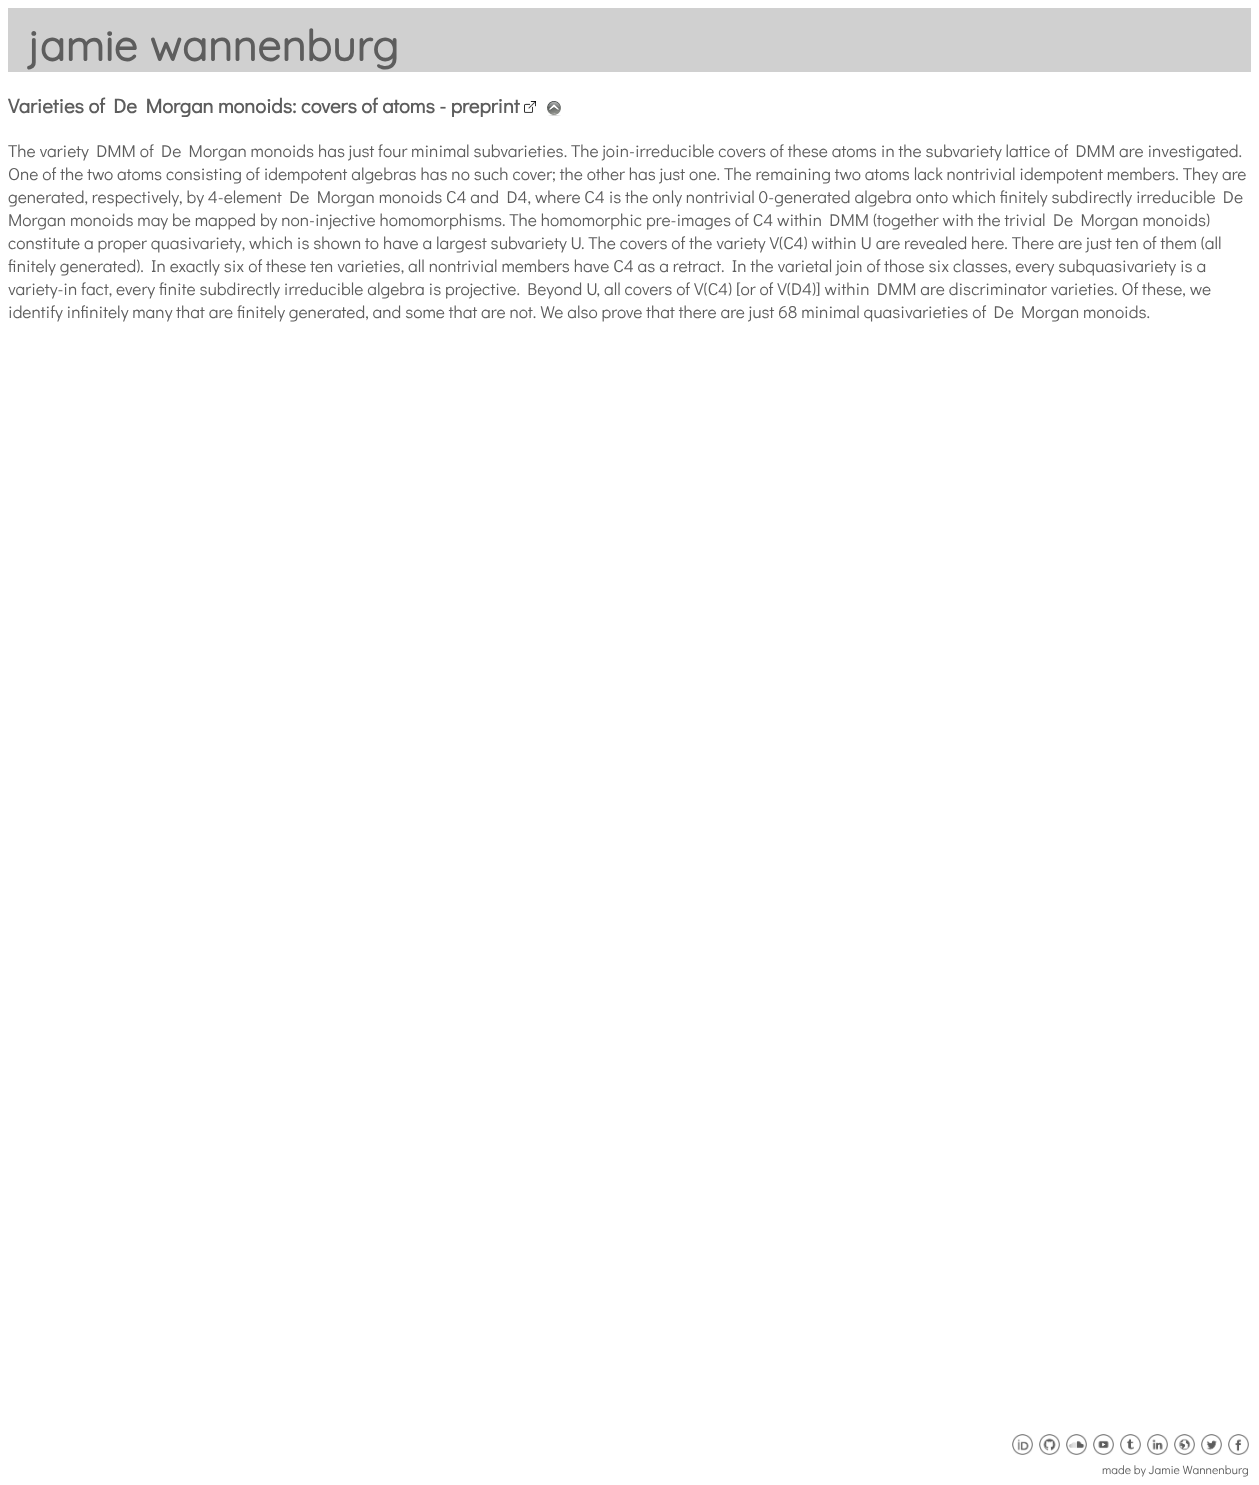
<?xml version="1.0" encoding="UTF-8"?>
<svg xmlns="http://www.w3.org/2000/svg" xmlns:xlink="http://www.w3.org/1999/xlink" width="1259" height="1485">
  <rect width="100%" height="100%" fill="#ffffff" />
  <rect x="8" y="8" width="1243" height="64" fill="#d0d0d0" />
  <image x="524" y="101" width="12" height="12" xlink:href="image1.png" />
  <image x="547" y="101" width="14" height="15" xlink:href="image2.png" />
  <image x="1012" y="1434" width="21" height="21" xlink:href="image3.png" />
  <image x="1039" y="1434" width="21" height="21" xlink:href="image4.png" />
  <image x="1066" y="1434" width="21" height="21" xlink:href="image5.png" />
  <image x="1093" y="1434" width="21" height="21" xlink:href="image6.png" />
  <image x="1120" y="1434" width="21" height="21" xlink:href="image7.png" />
  <image x="1147" y="1434" width="21" height="21" xlink:href="image8.png" />
  <image x="1174" y="1434" width="21" height="21" xlink:href="image9.png" />
  <image x="1201" y="1434" width="21" height="21" xlink:href="image10.png" />
  <image x="1228" y="1434" width="21" height="21" xlink:href="image11.png" />
  <text x="28" y="61" style="font-family: Quicksand; font-size: 42.75px; font-weight: bold; fill: #5d5d5d">jamie wannenburg</text>
  <text x="8" y="113" style="font-family: Didact Gothic; font-size: 20.25px; font-weight: bold; fill: #5d5d5d">Varieties of De Morgan monoids: covers of atoms - preprint</text>
  <text x="8" y="157" style="font-family: Didact Gothic; font-size: 17.33px; fill: #5d5d5d">The variety DMM of De Morgan monoids has just four minimal subvarieties. The join-irreducible covers of these atoms in the subvariety lattice of DMM are investigated.</text>
  <text x="8" y="180" style="font-family: Didact Gothic; font-size: 17.33px; fill: #5d5d5d">One of the two atoms consisting of idempotent algebras has no such cover; the other has just one. The remaining two atoms lack nontrivial idempotent members. They are</text>
  <text x="8" y="203" style="font-family: Didact Gothic; font-size: 17.33px; fill: #5d5d5d">generated, respectively, by 4-element De Morgan monoids C4 and D4, where C4 is the only nontrivial 0-generated algebra onto which finitely subdirectly irreducible De</text>
  <text x="8" y="226" style="font-family: Didact Gothic; font-size: 17.33px; fill: #5d5d5d">Morgan monoids may be mapped by non-injective homomorphisms. The homomorphic pre-images of C4 within DMM (together with the trivial De Morgan monoids)</text>
  <text x="8" y="249" style="font-family: Didact Gothic; font-size: 17.33px; fill: #5d5d5d">constitute a proper quasivariety, which is shown to have a largest subvariety U. The covers of the variety V(C4) within U are revealed here. There are just ten of them (all</text>
  <text x="8" y="272" style="font-family: Didact Gothic; font-size: 17.33px; fill: #5d5d5d">finitely generated). In exactly six of these ten varieties, all nontrivial members have C4 as a retract. In the varietal join of those six classes, every subquasivariety is a</text>
  <text x="8" y="295" style="font-family: Didact Gothic; font-size: 17.33px; fill: #5d5d5d">variety-in fact, every finite subdirectly irreducible algebra is projective. Beyond U, all covers of V(C4) [or of V(D4)] within DMM are discriminator varieties. Of these, we</text>
  <text x="8" y="318" style="font-family: Didact Gothic; font-size: 17.33px; fill: #5d5d5d">identify infinitely many that are finitely generated, and some that are not. We also prove that there are just 68 minimal quasivarieties of De Morgan monoids.</text>
  <text x="1102" y="1474" style="font-family: Didact Gothic; font-size: 12px; fill: #5d5d5d">made by Jamie Wannenburg</text>
</svg>
